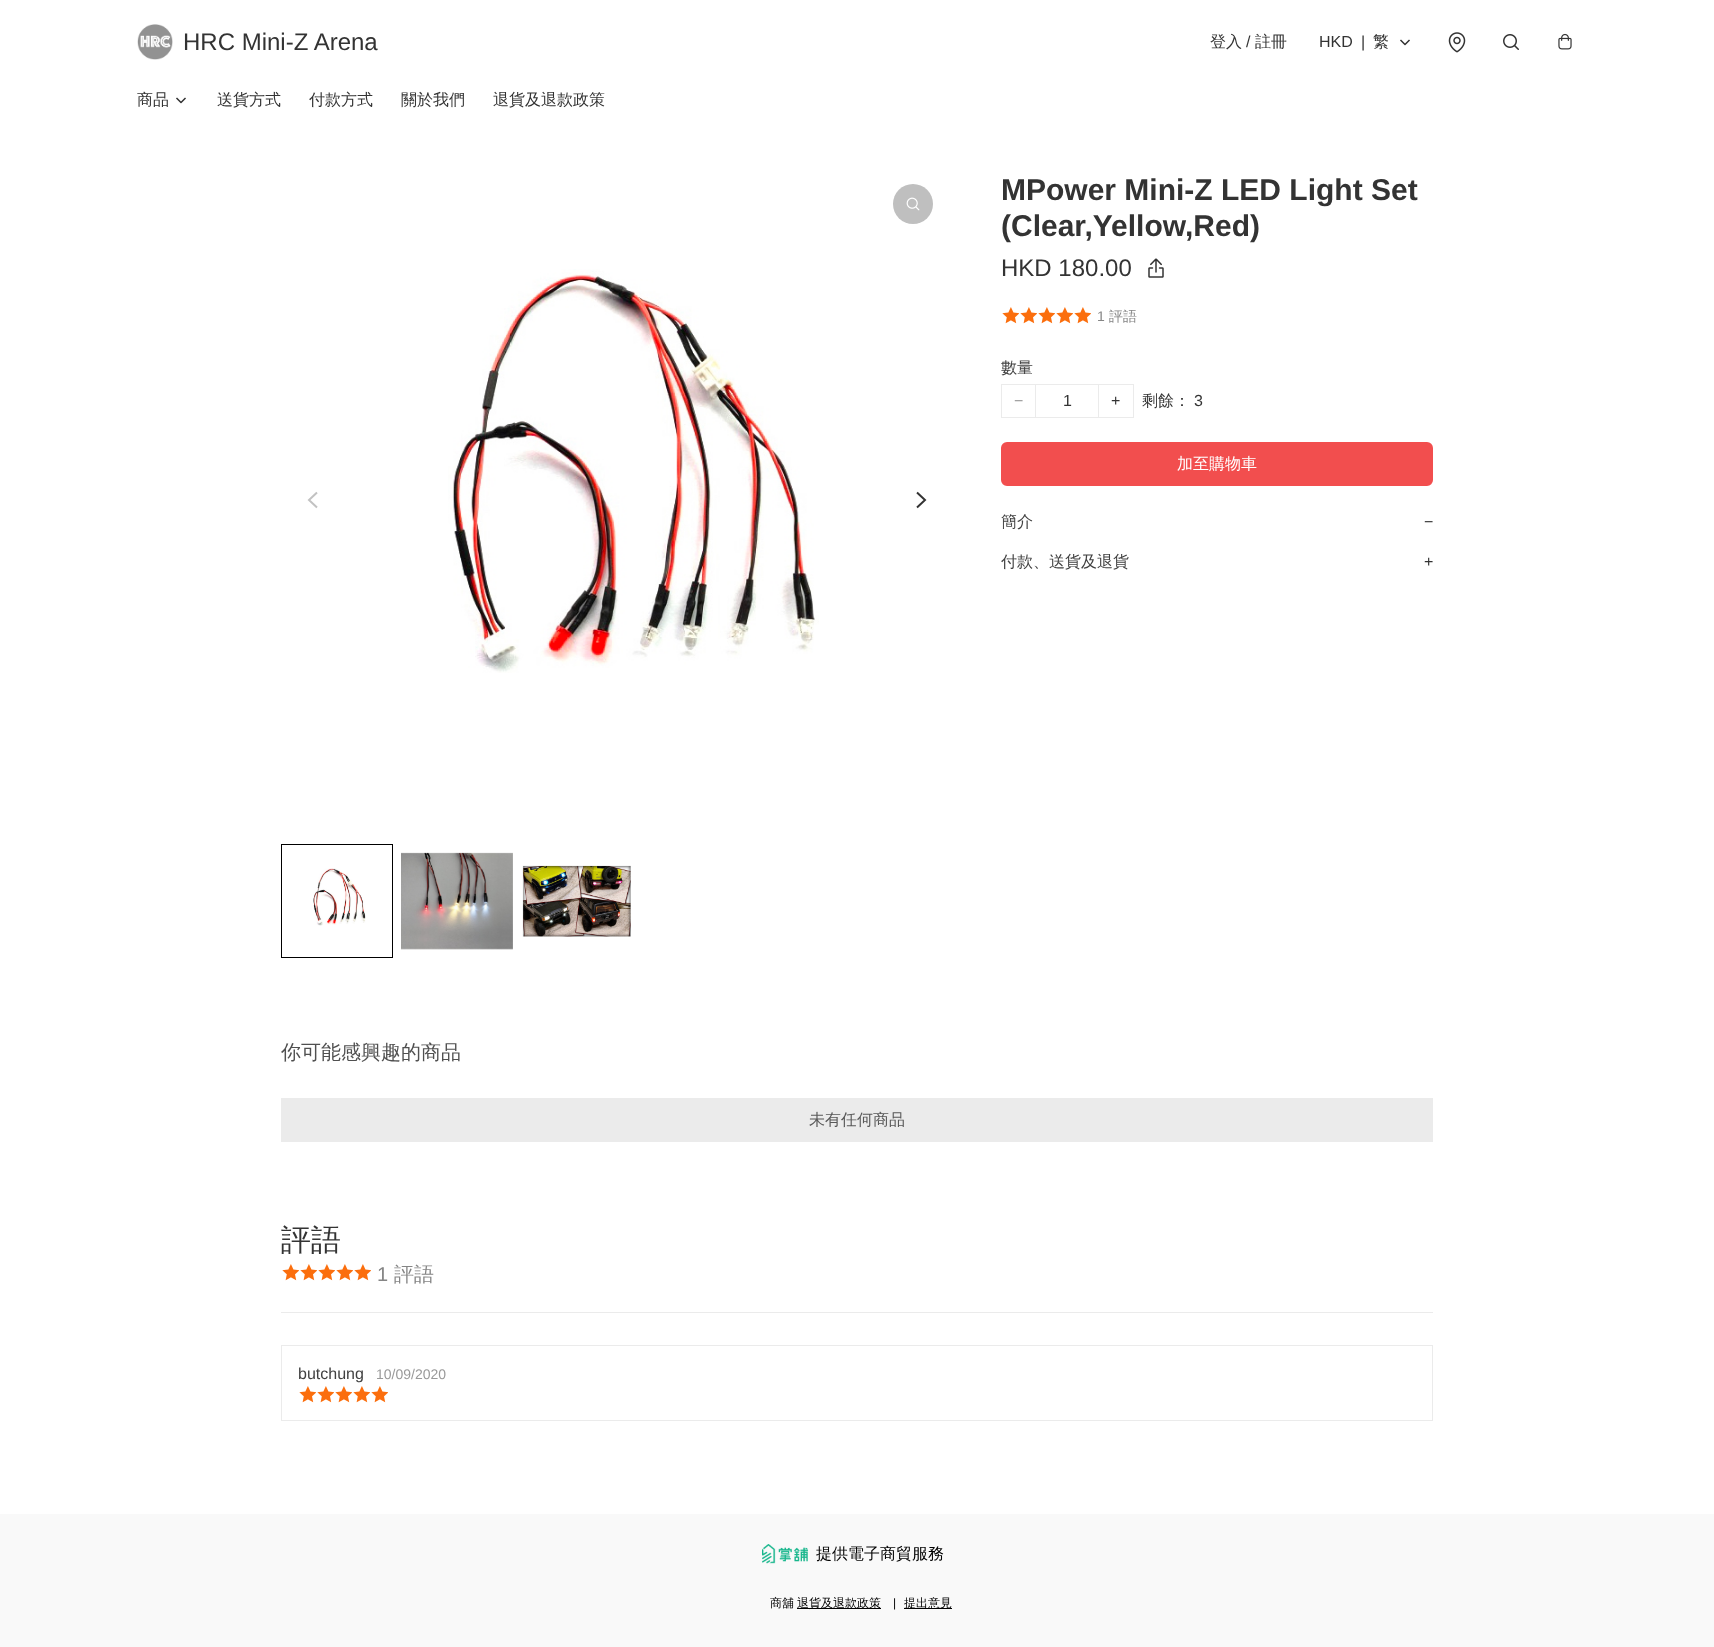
<?xml version="1.0" encoding="UTF-8"?>
<svg xmlns="http://www.w3.org/2000/svg" xmlns:xlink="http://www.w3.org/1999/xlink" width="1714" height="1647">
  <rect width="100%" height="100%" fill="#ffffff" />
  <image x="137" y="24" width="36" height="36" xlink:href="image1.png" />
  <path d="M 1401 40.5 l 4 4 l 4 -4" fill="none" stroke="#333333" stroke-width="1.5" stroke-linecap="square" stroke-linejoin="round" />
  <image x="1448" y="32" width="18" height="21" xlink:href="image2.png" />
  <image x="1503" y="34" width="16" height="16" xlink:href="image3.png" />
  <image x="1558" y="33" width="14" height="17" xlink:href="image4.png" />
  <path d="M 177 98.5 l 4 4 l 4 -4" fill="none" stroke="#333333" stroke-width="1.5" stroke-linecap="square" stroke-linejoin="round" />
  <circle cx="913" cy="204" r="20" fill="#bfbfbf" />
  <image x="906" y="197" width="14" height="14" xlink:href="image5.png" />
  <path d="M 317 492.5 l -8 7.5 l 8 7.5" fill="none" stroke="#c2c2c2" stroke-width="2" />
  <image x="448" y="269" width="371" height="404" xlink:href="image6.png" />
  <path d="M 917 492.5 l 8 7.5 l -8 7.5" fill="none" stroke="#333333" stroke-width="2" />
  <rect x="281.5" y="844.5" width="111" height="113" fill="none" stroke="#000000" />
  <image x="313" y="868" width="53" height="58" xlink:href="image7.png" />
  <image x="401" y="852" width="112" height="98" xlink:href="image8.png" />
  <image x="522" y="865" width="109" height="72" xlink:href="image9.png" />
  <image x="1148" y="258" width="16" height="20" xlink:href="image10.png" />
  <image x="1002" y="307" width="17" height="17" xlink:href="image11.png" />
  <image x="1020" y="307" width="17" height="17" xlink:href="image11.png" />
  <image x="1038" y="307" width="17" height="17" xlink:href="image11.png" />
  <image x="1056" y="307" width="17" height="17" xlink:href="image11.png" />
  <image x="1074" y="307" width="17" height="17" xlink:href="image11.png" />
  <rect x="1001.5" y="384.5" width="132" height="33" fill="none" stroke="#ebebeb" />
  <rect x="1098" y="385" width="1" height="32" fill="#ebebeb" />
  <rect x="1035" y="385" width="1" height="32" fill="#ebebeb" />
  <rect x="1002" y="443" width="430" height="42" rx="5" fill="#f24e4e" stroke="#f24e4e" stroke-width="2" />
  <rect x="281" y="1098" width="1152" height="44" fill="#ebebeb" />
  <rect x="281" y="1312" width="1152" height="1" fill="#ebebeb" />
  <image x="282" y="1264" width="17" height="17" xlink:href="image11.png" />
  <image x="300" y="1264" width="17" height="17" xlink:href="image11.png" />
  <image x="318" y="1264" width="17" height="17" xlink:href="image11.png" />
  <image x="336" y="1264" width="17" height="17" xlink:href="image11.png" />
  <image x="354" y="1264" width="17" height="17" xlink:href="image11.png" />
  <rect x="281.5" y="1345.5" width="1151" height="75" fill="none" stroke="#ebebeb" />
  <image x="299" y="1386" width="17" height="17" xlink:href="image11.png" />
  <image x="317" y="1386" width="17" height="17" xlink:href="image11.png" />
  <image x="335" y="1386" width="17" height="17" xlink:href="image11.png" />
  <image x="353" y="1386" width="17" height="17" xlink:href="image11.png" />
  <image x="371" y="1386" width="17" height="17" xlink:href="image11.png" />
  <rect y="1514" width="1714" height="133" fill="#f9f9f9" />
  <image x="762" y="1544" width="46" height="20" xlink:href="image12.png" />
  <rect x="797" y="1608" width="84" height="1" fill="#000000" />
  <rect x="904" y="1608" width="48" height="1" fill="#000000" />
  <text x="183" y="50" style="font-family: Liberation Sans; font-size: 24px; fill: #333333">HRC Mini-Z Arena</text>
  <text x="1210" y="47" style="font-family: WenQuanYi Zen Hei; font-size: 16px; font-weight: 500; fill: #333333">登入</text>
  <text x="1246" y="47" style="font-family: Liberation Sans; font-size: 16px; fill: #333333">/</text>
  <text x="1255" y="47" style="font-family: WenQuanYi Zen Hei; font-size: 16px; font-weight: 500; fill: #333333">註冊</text>
  <text x="1319" y="47" style="font-family: Liberation Sans; font-size: 16px; fill: #333333">HKD</text>
  <text x="1361" y="47" style="font-family: Liberation Sans; font-size: 16px; fill: #333333">|</text>
  <text x="1373" y="47" style="font-family: WenQuanYi Zen Hei; font-size: 16px; font-weight: 500; fill: #333333">繁</text>
  <text x="137" y="105" style="font-family: WenQuanYi Zen Hei; font-size: 16px; font-weight: 500; fill: #333333">商品</text>
  <text x="217" y="105" style="font-family: WenQuanYi Zen Hei; font-size: 16px; font-weight: 500; fill: #333333">送貨方式</text>
  <text x="309" y="105" style="font-family: WenQuanYi Zen Hei; font-size: 16px; font-weight: 500; fill: #333333">付款方式</text>
  <text x="401" y="105" style="font-family: WenQuanYi Zen Hei; font-size: 16px; font-weight: 500; fill: #333333">關於我們</text>
  <text x="493" y="105" style="font-family: WenQuanYi Zen Hei; font-size: 16px; font-weight: 500; fill: #333333">退貨及退款政策</text>
  <text x="1001" y="200" style="font-family: Liberation Sans; font-size: 30px; font-weight: bold; fill: #333333">MPower Mini-Z LED Light Set</text>
  <text x="1001" y="236" style="font-family: Liberation Sans; font-size: 30px; font-weight: bold; fill: #333333">(Clear,Yellow,Red)</text>
  <text x="1001" y="276" style="font-family: Liberation Sans; font-size: 24px; fill: #333333">HKD 180.00</text>
  <text x="1097" y="321" style="font-family: Liberation Sans; font-size: 14px; fill: #858585">1</text>
  <text x="1109" y="321" style="font-family: WenQuanYi Zen Hei; font-size: 14px; font-weight: 500; fill: #858585">評語</text>
  <text x="1001" y="373" style="font-family: WenQuanYi Zen Hei; font-size: 16px; font-weight: 500; fill: #414141">數量</text>
  <text x="1014" y="406" style="font-family: Liberation Sans; font-size: 16px; fill: #999999">−</text>
  <text x="1063" y="406" style="font-family: Liberation Sans; font-size: 16px; fill: #333333">1</text>
  <text x="1111" y="406" style="font-family: Liberation Sans; font-size: 16px; fill: #333333">+</text>
  <text x="1142" y="406" style="font-family: WenQuanYi Zen Hei; font-size: 16px; font-weight: 500; fill: #333333">剩餘：</text>
  <text x="1194" y="406" style="font-family: Liberation Sans; font-size: 16px; fill: #333333">3</text>
  <text x="1177" y="469" style="font-family: WenQuanYi Zen Hei; font-size: 16px; font-weight: 500; fill: #ffffff">加至購物車</text>
  <text x="1001" y="527" style="font-family: WenQuanYi Zen Hei; font-size: 16px; font-weight: 500; fill: #414141">簡介</text>
  <text x="1424" y="527" style="font-family: Liberation Sans; font-size: 16px; fill: #333333">−</text>
  <text x="1001" y="567" style="font-family: WenQuanYi Zen Hei; font-size: 16px; font-weight: 500; fill: #414141">付款、送貨及退貨</text>
  <text x="1424" y="567" style="font-family: Liberation Sans; font-size: 16px; fill: #333333">+</text>
  <text x="281" y="1059" style="font-family: WenQuanYi Zen Hei; font-size: 20px; font-weight: 500; fill: #505050">你可能感興趣的商品</text>
  <text x="809" y="1125" style="font-family: WenQuanYi Zen Hei; font-size: 16px; font-weight: 500; fill: #585858">未有任何商品</text>
  <text x="281" y="1250" style="font-family: WenQuanYi Zen Hei; font-size: 30px; font-weight: 500; fill: #333333">評語</text>
  <text x="377" y="1281" style="font-family: Liberation Sans; font-size: 20px; fill: #858585">1</text>
  <text x="394" y="1281" style="font-family: WenQuanYi Zen Hei; font-size: 20px; font-weight: 500; fill: #858585">評語</text>
  <text x="298" y="1379" style="font-family: Liberation Sans; font-size: 16px; fill: #414141">butchung</text>
  <text x="376" y="1379" style="font-family: Liberation Sans; font-size: 14px; fill: #999999">10/09/2020</text>
  <text x="816" y="1559" style="font-family: WenQuanYi Zen Hei; font-size: 16px; font-weight: 500; fill: #000000">提供電子商貿服務</text>
  <text x="770" y="1607" style="font-family: WenQuanYi Zen Hei; font-size: 12px; font-weight: 500; fill: #000000">商舖</text>
  <text x="797" y="1607" style="font-family: WenQuanYi Zen Hei; font-size: 12px; font-weight: 500; fill: #000000">退貨及退款政策</text>
  <text x="893" y="1607" style="font-family: Liberation Sans; font-size: 12px; fill: #000000">|</text>
  <text x="904" y="1607" style="font-family: WenQuanYi Zen Hei; font-size: 12px; font-weight: 500; fill: #000000">提出意見</text>
</svg>
